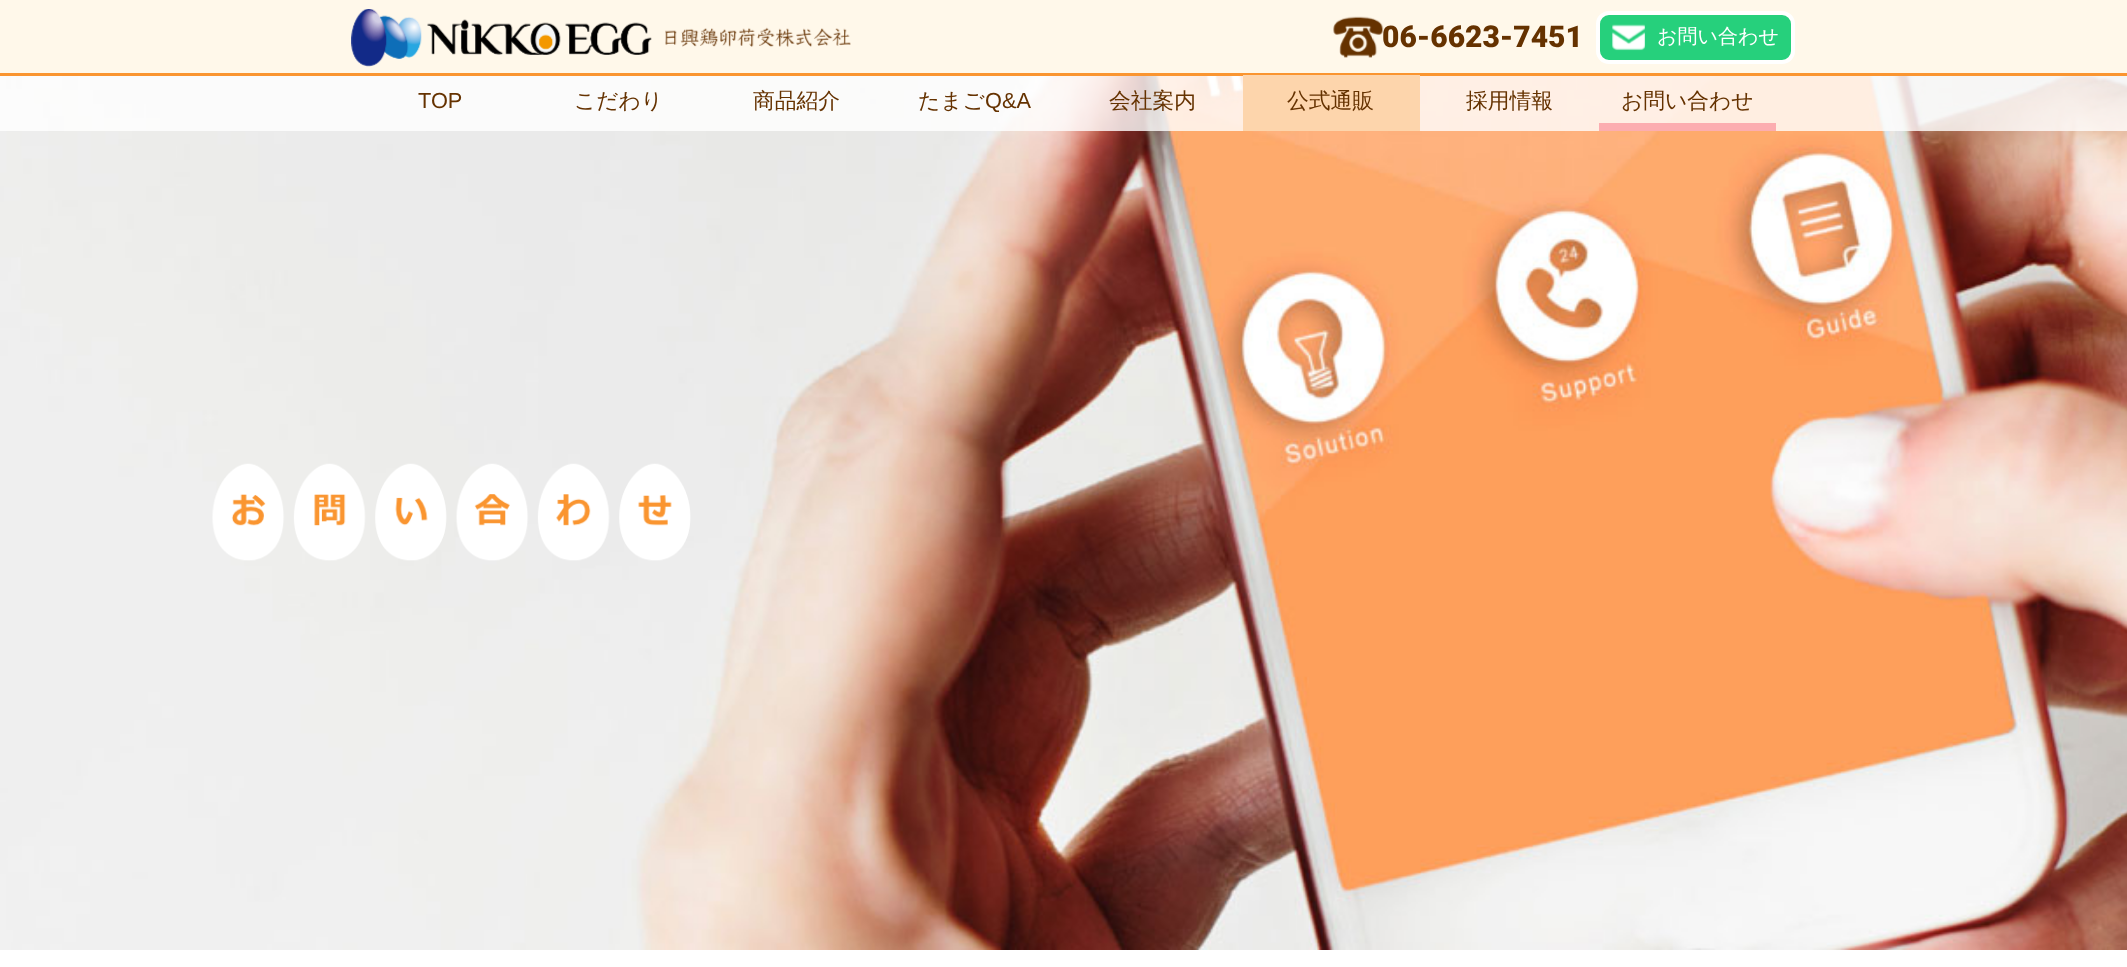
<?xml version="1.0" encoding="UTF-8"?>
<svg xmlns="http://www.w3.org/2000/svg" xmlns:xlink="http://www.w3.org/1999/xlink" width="2127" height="967">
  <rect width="100%" height="100%" fill="#ffffff" />
  <image x="0" y="76" width="2127" height="874" xlink:href="image5.png" />
  <rect y="76" width="2127" height="55" fill="#ffffff" fill-opacity="0.8" />
  <rect width="2127" height="73" fill="#fff8ea" />
  <rect y="73" width="2127" height="3" fill="#fa9530" />
  <image x="351" y="9" width="301" height="58" xlink:href="image1.png" />
  <image x="665" y="27" width="186" height="20" xlink:href="image2.png" />
  <image x="1333" y="16" width="51" height="42" xlink:href="image3.png" />
  <rect x="1598" y="13" width="195" height="49" rx="11" fill="#26d07c" stroke="#ffffff" stroke-width="4" />
  <image x="1612" y="24" width="33" height="27" xlink:href="image4.png" />
  <rect x="1243" y="75" width="177" height="56" fill="#fdd5ac" />
  <rect x="1599" y="123" width="177" height="8" fill="#fcadb0" />
  <image x="212" y="463" width="479" height="98" xlink:href="image6.png" />
  <text x="1382" y="47" style="font-family: Roboto; font-size: 30px; font-weight: 900; fill: #653200">06-6623-7451</text>
  <text x="1657" y="43" style="font-family: WenQuanYi Zen Hei; font-size: 20px; font-weight: 500; fill: #ffffff">お問い合わせ</text>
  <text x="418" y="108" style="font-family: Liberation Sans; font-size: 21.75px; fill: #653200">TOP</text>
  <text x="574" y="108" style="font-family: WenQuanYi Zen Hei; font-size: 21.75px; font-weight: 500; fill: #653200">こだわり</text>
  <text x="753" y="108" style="font-family: WenQuanYi Zen Hei; font-size: 21.75px; font-weight: 500; fill: #653200">商品紹介</text>
  <text x="918" y="108" style="font-family: WenQuanYi Zen Hei; font-size: 21.75px; font-weight: 500; fill: #653200">たまご</text>
  <text x="985" y="108" style="font-family: Liberation Sans; font-size: 21.75px; fill: #653200">Q&amp;A</text>
  <text x="1109" y="108" style="font-family: WenQuanYi Zen Hei; font-size: 21.75px; font-weight: 500; fill: #653200">会社案内</text>
  <text x="1287" y="108" style="font-family: WenQuanYi Zen Hei; font-size: 21.75px; font-weight: 500; fill: #653200">公式通販</text>
  <text x="1466" y="108" style="font-family: WenQuanYi Zen Hei; font-size: 21.75px; font-weight: 500; fill: #653200">採用情報</text>
  <text x="1621" y="108" style="font-family: WenQuanYi Zen Hei; font-size: 21.75px; font-weight: 500; fill: #653200">お問い合わせ</text>
</svg>
